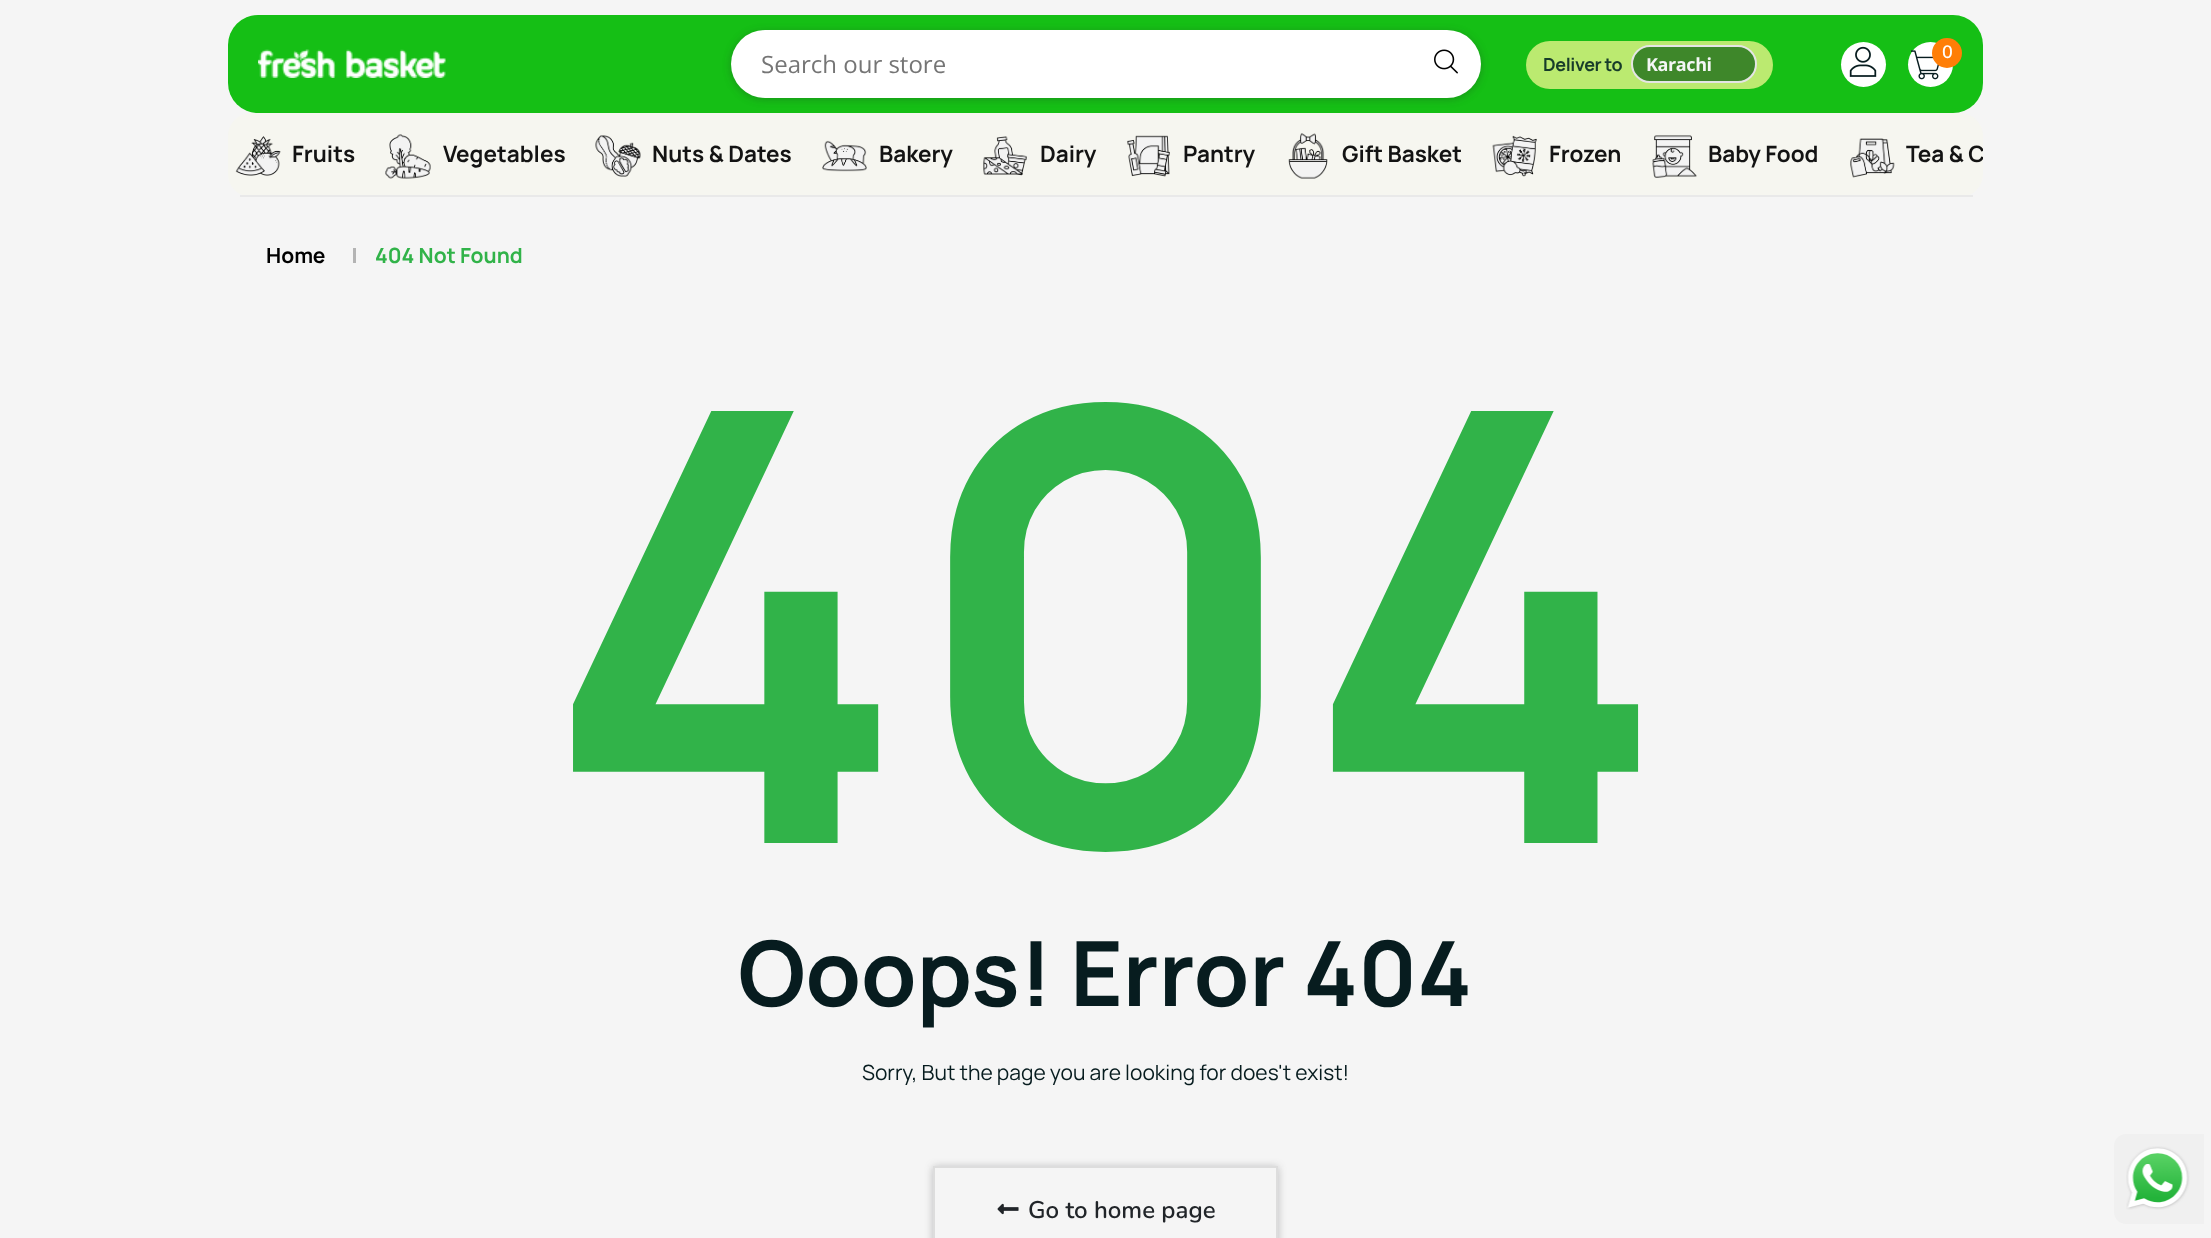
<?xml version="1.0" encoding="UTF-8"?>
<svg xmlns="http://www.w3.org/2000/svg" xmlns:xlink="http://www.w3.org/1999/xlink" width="2211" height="1238">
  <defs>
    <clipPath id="clip1"><path d="M 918 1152 h 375 v 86 h -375 z m 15 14 h 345 v 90 h -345 z" clip-rule="evenodd" /></clipPath>
    <clipPath id="clip2"><path d="M 250.5 112.5 h 1710 c 12.5 0 22.5 10 22.5 22.5 v 39 c 0 11.5 -10 21 -22.5 21 h -1710 c -12.5 0 -22.5 -9.5 -22.5 -21 v -39 c 0 -12.5 10 -22.5 22.5 -22.5 z" /></clipPath>
  </defs>
  <rect width="100%" height="100%" fill="#f5f5f5" />
  <rect x="228" y="15" width="1755" height="98" rx="30" fill="#15bf15" />
  <image x="258" y="49" width="188" height="29" xlink:href="image1.png" />
  <rect x="731" y="32" width="750" height="67" rx="33.5" fill="#202124" fill-opacity="0.28" filter="blur(4.5px)" />
  <rect x="731" y="30" width="750" height="68" rx="34" fill="#ffffff" />
  <image x="1434" y="49" width="24" height="25" xlink:href="image2.png" />
  <circle cx="1863.5" cy="64.5" r="22.5" fill="#ffffff" />
  <image x="1849" y="46" width="28" height="31" xlink:href="image3.png" />
  <circle cx="1930.5" cy="64.5" r="22.5" fill="#ffffff" />
  <image x="1911" y="50" width="28" height="30" xlink:href="image4.png" />
  <circle cx="1947" cy="53" r="15" fill="#ff7e07" />
  <rect x="1526" y="41" width="247" height="48" rx="24" fill="#bbea70" />
  <rect x="1632" y="46" width="124" height="36" rx="18" fill="#3e872a" stroke="#e5e5e5" stroke-width="2" />
  <rect x="228" y="113" width="1755" height="84" rx="23" fill="#f6f6f0" />
  <rect x="240" y="195" width="1733" height="2" fill="#e9e9e9" />
  <image x="235" y="136" width="46" height="40" xlink:href="image5.png" />
  <image x="385" y="134" width="46" height="45" xlink:href="image6.png" />
  <image x="595" y="135" width="46" height="42" xlink:href="image7.png" />
  <image x="822" y="140" width="45" height="32" xlink:href="image8.png" />
  <image x="983" y="136" width="44" height="40" xlink:href="image9.png" />
  <image x="1127" y="135" width="43" height="42" xlink:href="image10.png" />
  <image x="1288" y="133" width="40" height="46" xlink:href="image11.png" />
  <image x="1492" y="135" width="45" height="42" xlink:href="image12.png" />
  <image x="1652" y="135" width="45" height="43" xlink:href="image13.png" />
  <image x="1850" y="138" width="45" height="40" xlink:href="image14.png" />
  <rect x="353" y="248" width="3" height="15" fill="#b4b4b4" />
  <g clip-path="url(#clip1)">
    <rect x="933" y="1167" width="345" height="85" fill="#202124" fill-opacity="0.28" filter="blur(4.5px)" />
  </g>
  <rect x="934" y="1167" width="343" height="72" fill="none" stroke="#dddddd" stroke-width="2" />
  <image x="997" y="1203" width="22" height="12" xlink:href="image15.png" />
  <path d="M 2126 1134 h 78 v 90 h -78 c -6.5 0 -12 -5.5 -12 -12 v -66 c 0 -6.5 5.5 -12 12 -12 z" fill="#f0f0f0" />
  <image x="2126" y="1146" width="64" height="64" xlink:href="image16.png" />
  <text x="761" y="73" style="font-family: Open Sans; font-size: 24px; fill: #757575">Search our store</text>
  <text x="1942" y="58" style="font-family: Nunito; font-size: 18px; font-weight: 600; fill: #ffffff">0</text>
  <text x="1543" y="71" style="font-family: Manrope; font-size: 18px; font-weight: bold; letter-spacing: -0.4px; fill: #173c2a">Deliver to</text>
  <text x="1646" y="71" style="font-family: Open Sans; font-size: 18px; font-weight: bold; letter-spacing: -0.4px; fill: #f4f6f6">Karachi</text>
  <text x="292" y="162" style="font-family: Manrope; font-size: 22.5px; font-weight: bold; fill: #131313">Fruits</text>
  <text x="443" y="162" style="font-family: Manrope; font-size: 22.5px; font-weight: bold; fill: #131313">Vegetables</text>
  <text x="652" y="162" style="font-family: Manrope; font-size: 22.5px; font-weight: bold; fill: #131313">Nuts &amp; Dates</text>
  <text x="879" y="162" style="font-family: Manrope; font-size: 22.5px; font-weight: bold; fill: #131313">Bakery</text>
  <text x="1040" y="162" style="font-family: Manrope; font-size: 22.5px; font-weight: bold; fill: #131313">Dairy</text>
  <text x="1183" y="162" style="font-family: Manrope; font-size: 22.5px; font-weight: bold; fill: #131313">Pantry</text>
  <text x="1342" y="162" style="font-family: Manrope; font-size: 22.5px; font-weight: bold; fill: #131313">Gift Basket</text>
  <text x="1549" y="162" style="font-family: Manrope; font-size: 22.5px; font-weight: bold; fill: #131313">Frozen</text>
  <text x="1708" y="162" style="font-family: Manrope; font-size: 22.5px; font-weight: bold; fill: #131313">Baby Food</text>
  <g clip-path="url(#clip2)">
    <text x="1906" y="162" style="font-family: Manrope; font-size: 22.5px; font-weight: bold; fill: #131313">Tea &amp; C</text>
  </g>
  <text x="266" y="263" style="font-family: Manrope; font-size: 21px; font-weight: bold; fill: #000000">Home</text>
  <text x="375" y="263" style="font-family: Manrope; font-size: 21px; font-weight: bold; fill: #31b349">404 Not Found</text>
  <text x="543" y="843" style="font-family: Manrope; font-size: 600px; font-weight: bold; fill: #31b349">404</text>
  <text x="738" y="1006" style="font-family: Manrope; font-size: 90px; font-weight: bold; fill: #071c1f">Ooops! Error 404</text>
  <text x="862" y="1080" style="font-family: Manrope; font-size: 21px; fill: #071c1f">Sorry, But the page you are looking for does't exist!</text>
  <text x="1028" y="1218" style="font-family: Nunito; font-size: 24px; font-weight: 600; fill: #212529">Go to home page</text>
</svg>
